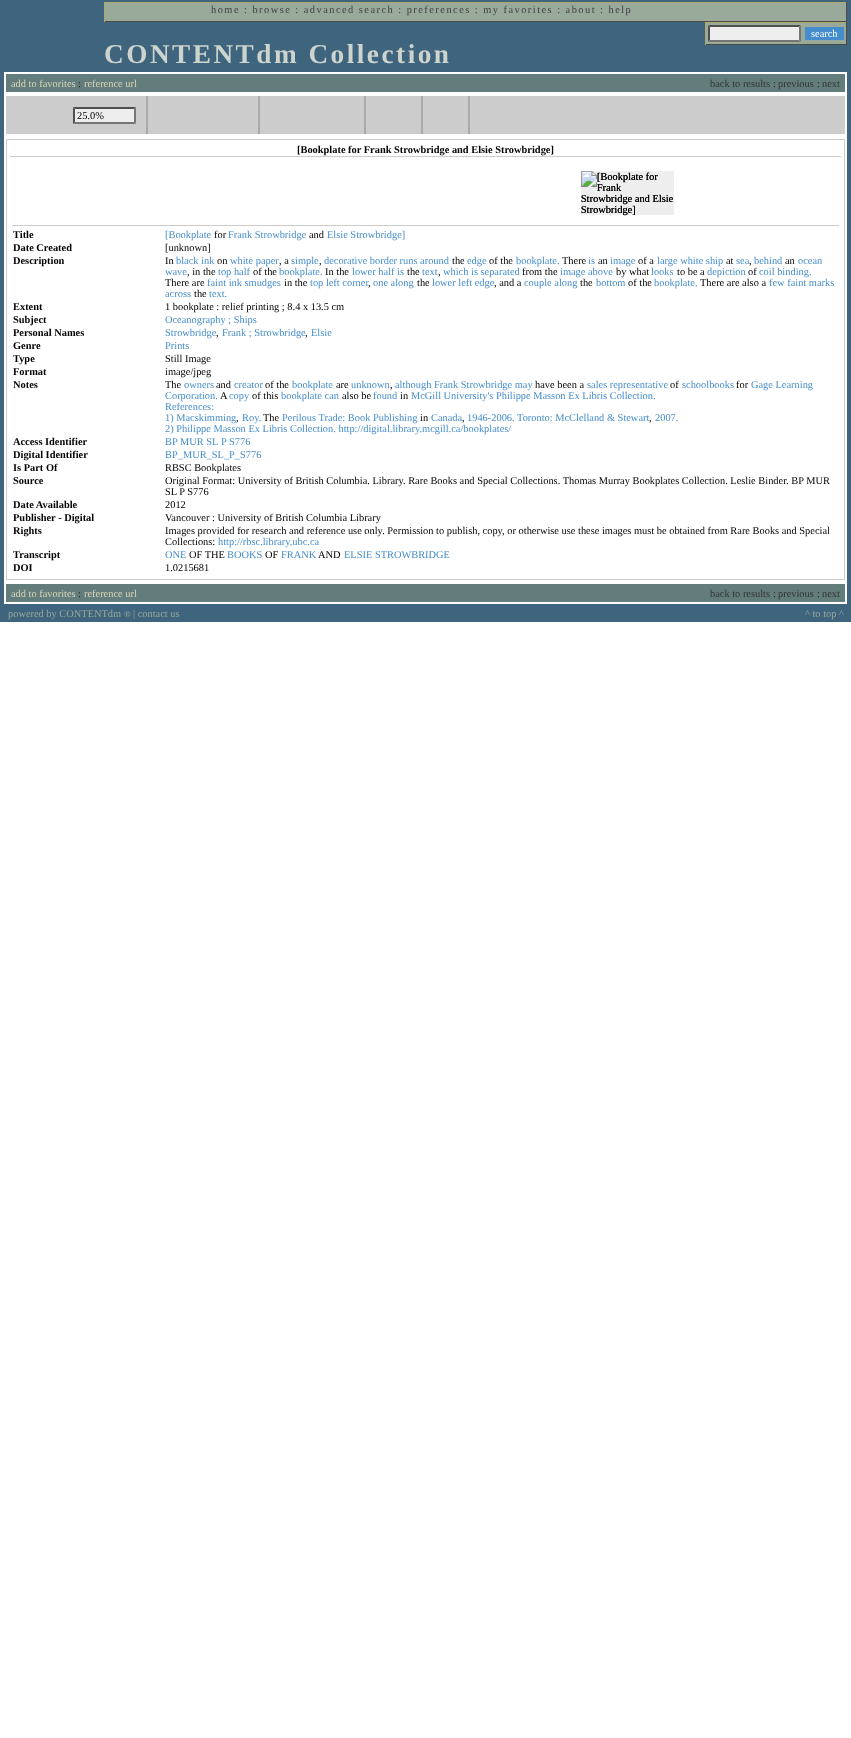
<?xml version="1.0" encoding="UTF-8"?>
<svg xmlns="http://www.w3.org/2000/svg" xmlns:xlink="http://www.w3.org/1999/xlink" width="851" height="1738">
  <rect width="100%" height="100%" fill="#ffffff" />
  <rect width="4" height="622" fill="#3e647e" />
  <rect x="4" width="843" height="72" fill="#3e647e" />
  <rect x="105" y="3" width="741" height="18" fill="#99a99a" />
  <rect x="104" y="2" width="743" height="1" fill="#ada86b" />
  <rect x="104" y="21" width="733" height="1" fill="#4c4c45" />
  <rect x="104" y="2" width="1" height="20" fill="#ada86b" />
  <rect x="846" y="2" width="1" height="20" fill="#4c4c45" />
  <rect x="837" y="21" width="10" height="1" fill="#4c4c45" />
  <rect x="706" y="23" width="140" height="21" fill="#99a99a" />
  <rect x="705" y="22" width="142" height="1" fill="#ada86b" />
  <rect x="705" y="44" width="98" height="1" fill="#4c4c45" />
  <rect x="705" y="22" width="1" height="23" fill="#ada86b" />
  <rect x="708" y="25" width="93" height="17" fill="#eeeeee" />
  <path d="M 708 25 h 93 l -2 2 h -89 z" fill="#4f4f4f" />
  <path d="M 801 25 v 17 l -2 -2 v -13 z" fill="#767676" />
  <path d="M 801 42 h -93 l 2 -2 h 89 z" fill="#767676" />
  <path d="M 708 42 v -17 l 2 2 v 13 z" fill="#4f4f4f" />
  <rect x="846" y="22" width="1" height="23" fill="#4c4c45" />
  <rect x="803" y="44" width="44" height="1" fill="#4c4c45" />
  <rect x="805" y="27" width="39" height="13" fill="#448ccb" />
  <rect x="6" y="74" width="839" height="18" fill="#627d7c" />
  <rect x="847" width="4" height="622" fill="#3e647e" />
  <rect x="6" y="96" width="839" height="38" fill="#cccccc" />
  <rect x="146" y="96" width="2" height="38" fill="#aaaaaa" />
  <rect x="73" y="107" width="63" height="17" fill="#eeeeee" />
  <path d="M 73 107 h 63 l -2 2 h -59 z" fill="#4f4f4f" />
  <path d="M 136 107 v 17 l -2 -2 v -13 z" fill="#767676" />
  <path d="M 136 124 h -63 l 2 -2 h 59 z" fill="#767676" />
  <path d="M 73 124 v -17 l 2 2 v 13 z" fill="#4f4f4f" />
  <rect x="258" y="96" width="2" height="38" fill="#aaaaaa" />
  <rect x="364" y="96" width="2" height="38" fill="#aaaaaa" />
  <rect x="421" y="96" width="2" height="38" fill="#aaaaaa" />
  <rect x="468" y="96" width="2" height="38" fill="#aaaaaa" />
  <rect x="6.5" y="139.5" width="838" height="440" fill="none" stroke="#cccccc" />
  <rect x="10" y="156" width="831" height="1" fill="#cccccc" />
  <rect x="581" y="171" width="93" height="44" fill="#eeeeee" />
  <image x="581" y="171" width="92" height="44" xlink:href="image1.png" />
  <rect x="12" y="225" width="827" height="1" fill="#cccccc" />
  <rect x="6" y="584" width="839" height="18" fill="#627d7c" />
  <rect x="4" y="604" width="843" height="18" fill="#3e647e" />
  <text x="211" y="13" style="font-family: Liberation Serif; font-size: 10.4px; letter-spacing: 1.47px; fill: #404040">home : browse : advanced search : preferences : my favorites : about : help</text>
  <text x="811" y="37" style="font-family: Liberation Serif; font-size: 10.4px; fill: #ffffff">search</text>
  <text x="104" y="63" style="font-family: Liberation Serif; font-size: 27.25px; font-weight: bold; letter-spacing: 2.5px; fill: #cdd3cd">CONTENTdm Collection</text>
  <text x="11" y="87" style="font-family: Liberation Serif; font-size: 10.4px; fill: #d9d7b9">add to favorites</text>
  <text x="78" y="87" style="font-family: Liberation Serif; font-size: 10.4px; fill: #202020">:</text>
  <text x="84" y="87" style="font-family: Liberation Serif; font-size: 10.4px; fill: #d9d7b9">reference url</text>
  <text x="710" y="87" style="font-family: Liberation Serif; font-size: 10.4px; fill: #333333">back to results</text>
  <text x="773" y="87" style="font-family: Liberation Serif; font-size: 10.4px; fill: #202020">:</text>
  <text x="778" y="87" style="font-family: Liberation Serif; font-size: 10.4px; fill: #333333">previous</text>
  <text x="817" y="87" style="font-family: Liberation Serif; font-size: 10.4px; fill: #202020">:</text>
  <text x="822" y="87" style="font-family: Liberation Serif; font-size: 10.4px; fill: #333333">next</text>
  <text x="77" y="119" style="font-family: Liberation Serif; font-size: 10.4px; fill: #000000">25.0%</text>
  <text x="297" y="153" style="font-family: Liberation Serif; font-size: 10.4px; font-weight: bold; fill: #000000">[Bookplate for Frank Strowbridge and Elsie Strowbridge]</text>
  <text x="597" y="180" style="font-family: Liberation Serif; font-size: 10.4px; fill: #000000">[Bookplate for</text>
  <text x="597" y="191" style="font-family: Liberation Serif; font-size: 10.4px; fill: #000000">Frank</text>
  <text x="581" y="202" style="font-family: Liberation Serif; font-size: 10.4px; fill: #000000">Strowbridge and Elsie</text>
  <text x="581" y="213" style="font-family: Liberation Serif; font-size: 10.4px; fill: #000000">Strowbridge]</text>
  <text x="13" y="238" style="font-family: Liberation Serif; font-size: 10.4px; font-weight: bold; fill: #000000">Title</text>
  <text x="165" y="238" style="font-family: Liberation Serif; font-size: 10.4px; fill: #448ccb">[Bookplate</text>
  <text x="214" y="238" style="font-family: Liberation Serif; font-size: 10.4px; fill: #000000">for</text>
  <text x="228" y="238" style="font-family: Liberation Serif; font-size: 10.4px; fill: #448ccb">Frank Strowbridge</text>
  <text x="309" y="238" style="font-family: Liberation Serif; font-size: 10.4px; fill: #000000">and</text>
  <text x="327" y="238" style="font-family: Liberation Serif; font-size: 10.4px; fill: #448ccb">Elsie Strowbridge]</text>
  <text x="13" y="251" style="font-family: Liberation Serif; font-size: 10.4px; font-weight: bold; fill: #000000">Date Created</text>
  <text x="165" y="251" style="font-family: Liberation Serif; font-size: 10.4px; fill: #000000">[unknown]</text>
  <text x="13" y="264" style="font-family: Liberation Serif; font-size: 10.4px; font-weight: bold; fill: #000000">Description</text>
  <text x="165" y="264" style="font-family: Liberation Serif; font-size: 10.4px; fill: #000000">In</text>
  <text x="176" y="264" style="font-family: Liberation Serif; font-size: 10.4px; fill: #448ccb">black ink</text>
  <text x="217" y="264" style="font-family: Liberation Serif; font-size: 10.4px; fill: #000000">on</text>
  <text x="230" y="264" style="font-family: Liberation Serif; font-size: 10.4px; fill: #448ccb">white paper</text>
  <text x="279" y="264" style="font-family: Liberation Serif; font-size: 10.4px; fill: #000000">, a</text>
  <text x="291" y="264" style="font-family: Liberation Serif; font-size: 10.4px; fill: #448ccb">simple</text>
  <text x="319" y="264" style="font-family: Liberation Serif; font-size: 10.4px; fill: #000000">,</text>
  <text x="324" y="264" style="font-family: Liberation Serif; font-size: 10.4px; fill: #448ccb">decorative border runs around</text>
  <text x="452" y="264" style="font-family: Liberation Serif; font-size: 10.4px; fill: #000000">the</text>
  <text x="467" y="264" style="font-family: Liberation Serif; font-size: 10.4px; fill: #448ccb">edge</text>
  <text x="489" y="264" style="font-family: Liberation Serif; font-size: 10.4px; fill: #000000">of the</text>
  <text x="516" y="264" style="font-family: Liberation Serif; font-size: 10.4px; fill: #448ccb">bookplate.</text>
  <text x="562" y="264" style="font-family: Liberation Serif; font-size: 10.4px; fill: #000000">There</text>
  <text x="588" y="264" style="font-family: Liberation Serif; font-size: 10.4px; fill: #448ccb">is</text>
  <text x="598" y="264" style="font-family: Liberation Serif; font-size: 10.4px; fill: #000000">an</text>
  <text x="610" y="264" style="font-family: Liberation Serif; font-size: 10.4px; fill: #448ccb">image</text>
  <text x="638" y="264" style="font-family: Liberation Serif; font-size: 10.4px; fill: #000000">of a</text>
  <text x="657" y="264" style="font-family: Liberation Serif; font-size: 10.4px; fill: #448ccb">large white ship</text>
  <text x="726" y="264" style="font-family: Liberation Serif; font-size: 10.4px; fill: #000000">at</text>
  <text x="736" y="264" style="font-family: Liberation Serif; font-size: 10.4px; fill: #448ccb">sea</text>
  <text x="749" y="264" style="font-family: Liberation Serif; font-size: 10.4px; fill: #000000">,</text>
  <text x="754" y="264" style="font-family: Liberation Serif; font-size: 10.4px; fill: #448ccb">behind</text>
  <text x="785" y="264" style="font-family: Liberation Serif; font-size: 10.4px; fill: #000000">an</text>
  <text x="798" y="264" style="font-family: Liberation Serif; font-size: 10.4px; fill: #448ccb">ocean</text>
  <text x="165" y="275" style="font-family: Liberation Serif; font-size: 10.4px; fill: #448ccb">wave</text>
  <text x="187" y="275" style="font-family: Liberation Serif; font-size: 10.4px; fill: #000000">, in the</text>
  <text x="218" y="275" style="font-family: Liberation Serif; font-size: 10.4px; fill: #448ccb">top half</text>
  <text x="253" y="275" style="font-family: Liberation Serif; font-size: 10.4px; fill: #000000">of the</text>
  <text x="279" y="275" style="font-family: Liberation Serif; font-size: 10.4px; fill: #448ccb">bookplate.</text>
  <text x="325" y="275" style="font-family: Liberation Serif; font-size: 10.4px; fill: #000000">In the</text>
  <text x="352" y="275" style="font-family: Liberation Serif; font-size: 10.4px; fill: #448ccb">lower half is</text>
  <text x="407" y="275" style="font-family: Liberation Serif; font-size: 10.4px; fill: #000000">the</text>
  <text x="422" y="275" style="font-family: Liberation Serif; font-size: 10.4px; fill: #448ccb">text</text>
  <text x="438" y="275" style="font-family: Liberation Serif; font-size: 10.4px; fill: #000000">,</text>
  <text x="443" y="275" style="font-family: Liberation Serif; font-size: 10.4px; fill: #448ccb">which is separated</text>
  <text x="522" y="275" style="font-family: Liberation Serif; font-size: 10.4px; fill: #000000">from the</text>
  <text x="560" y="275" style="font-family: Liberation Serif; font-size: 10.4px; fill: #448ccb">image above</text>
  <text x="616" y="275" style="font-family: Liberation Serif; font-size: 10.4px; fill: #000000">by what</text>
  <text x="651" y="275" style="font-family: Liberation Serif; font-size: 10.4px; fill: #448ccb">looks</text>
  <text x="677" y="275" style="font-family: Liberation Serif; font-size: 10.4px; fill: #000000">to be a</text>
  <text x="707" y="275" style="font-family: Liberation Serif; font-size: 10.4px; fill: #448ccb">depiction</text>
  <text x="748" y="275" style="font-family: Liberation Serif; font-size: 10.4px; fill: #000000">of</text>
  <text x="759" y="275" style="font-family: Liberation Serif; font-size: 10.4px; fill: #448ccb">coil binding.</text>
  <text x="165" y="286" style="font-family: Liberation Serif; font-size: 10.4px; fill: #000000">There are</text>
  <text x="207" y="286" style="font-family: Liberation Serif; font-size: 10.4px; fill: #448ccb">faint ink smudges</text>
  <text x="284" y="286" style="font-family: Liberation Serif; font-size: 10.4px; fill: #000000">in the</text>
  <text x="310" y="286" style="font-family: Liberation Serif; font-size: 10.4px; fill: #448ccb">top left corner</text>
  <text x="368" y="286" style="font-family: Liberation Serif; font-size: 10.4px; fill: #000000">,</text>
  <text x="373" y="286" style="font-family: Liberation Serif; font-size: 10.4px; fill: #448ccb">one along</text>
  <text x="417" y="286" style="font-family: Liberation Serif; font-size: 10.4px; fill: #000000">the</text>
  <text x="432" y="286" style="font-family: Liberation Serif; font-size: 10.4px; fill: #448ccb">lower left edge</text>
  <text x="494" y="286" style="font-family: Liberation Serif; font-size: 10.4px; fill: #000000">, and a</text>
  <text x="524" y="286" style="font-family: Liberation Serif; font-size: 10.4px; fill: #448ccb">couple along</text>
  <text x="580" y="286" style="font-family: Liberation Serif; font-size: 10.4px; fill: #000000">the</text>
  <text x="596" y="286" style="font-family: Liberation Serif; font-size: 10.4px; fill: #448ccb">bottom</text>
  <text x="628" y="286" style="font-family: Liberation Serif; font-size: 10.4px; fill: #000000">of the</text>
  <text x="654" y="286" style="font-family: Liberation Serif; font-size: 10.4px; fill: #448ccb">bookplate.</text>
  <text x="700" y="286" style="font-family: Liberation Serif; font-size: 10.4px; fill: #000000">There are also a</text>
  <text x="769" y="286" style="font-family: Liberation Serif; font-size: 10.4px; fill: #448ccb">few faint marks</text>
  <text x="165" y="297" style="font-family: Liberation Serif; font-size: 10.4px; fill: #448ccb">across</text>
  <text x="194" y="297" style="font-family: Liberation Serif; font-size: 10.4px; fill: #000000">the</text>
  <text x="209" y="297" style="font-family: Liberation Serif; font-size: 10.4px; fill: #448ccb">text.</text>
  <text x="13" y="310" style="font-family: Liberation Serif; font-size: 10.4px; font-weight: bold; fill: #000000">Extent</text>
  <text x="165" y="310" style="font-family: Liberation Serif; font-size: 10.4px; fill: #000000">1 bookplate : relief printing ; 8.4 x 13.5 cm</text>
  <text x="13" y="323" style="font-family: Liberation Serif; font-size: 10.4px; font-weight: bold; fill: #000000">Subject</text>
  <text x="165" y="323" style="font-family: Liberation Serif; font-size: 10.4px; fill: #448ccb">Oceanography ; Ships</text>
  <text x="13" y="336" style="font-family: Liberation Serif; font-size: 10.4px; font-weight: bold; fill: #000000">Personal Names</text>
  <text x="165" y="336" style="font-family: Liberation Serif; font-size: 10.4px; fill: #448ccb">Strowbridge</text>
  <text x="216" y="336" style="font-family: Liberation Serif; font-size: 10.4px; fill: #000000">,</text>
  <text x="222" y="336" style="font-family: Liberation Serif; font-size: 10.4px; fill: #448ccb">Frank ; Strowbridge</text>
  <text x="305" y="336" style="font-family: Liberation Serif; font-size: 10.4px; fill: #000000">,</text>
  <text x="311" y="336" style="font-family: Liberation Serif; font-size: 10.4px; fill: #448ccb">Elsie</text>
  <text x="13" y="349" style="font-family: Liberation Serif; font-size: 10.4px; font-weight: bold; fill: #000000">Genre</text>
  <text x="165" y="349" style="font-family: Liberation Serif; font-size: 10.4px; fill: #448ccb">Prints</text>
  <text x="13" y="362" style="font-family: Liberation Serif; font-size: 10.4px; font-weight: bold; fill: #000000">Type</text>
  <text x="165" y="362" style="font-family: Liberation Serif; font-size: 10.4px; fill: #000000">Still Image</text>
  <text x="13" y="375" style="font-family: Liberation Serif; font-size: 10.4px; font-weight: bold; fill: #000000">Format</text>
  <text x="165" y="375" style="font-family: Liberation Serif; font-size: 10.4px; fill: #000000">image/jpeg</text>
  <text x="13" y="388" style="font-family: Liberation Serif; font-size: 10.4px; font-weight: bold; fill: #000000">Notes</text>
  <text x="165" y="388" style="font-family: Liberation Serif; font-size: 10.4px; fill: #000000">The</text>
  <text x="184" y="388" style="font-family: Liberation Serif; font-size: 10.4px; fill: #448ccb">owners</text>
  <text x="216" y="388" style="font-family: Liberation Serif; font-size: 10.4px; fill: #000000">and</text>
  <text x="234" y="388" style="font-family: Liberation Serif; font-size: 10.4px; fill: #448ccb">creator</text>
  <text x="265" y="388" style="font-family: Liberation Serif; font-size: 10.4px; fill: #000000">of the</text>
  <text x="292" y="388" style="font-family: Liberation Serif; font-size: 10.4px; fill: #448ccb">bookplate</text>
  <text x="336" y="388" style="font-family: Liberation Serif; font-size: 10.4px; fill: #000000">are</text>
  <text x="351" y="388" style="font-family: Liberation Serif; font-size: 10.4px; fill: #448ccb">unknown</text>
  <text x="390" y="388" style="font-family: Liberation Serif; font-size: 10.4px; fill: #000000">,</text>
  <text x="395" y="388" style="font-family: Liberation Serif; font-size: 10.4px; fill: #448ccb">although Frank Strowbridge may</text>
  <text x="535" y="388" style="font-family: Liberation Serif; font-size: 10.4px; fill: #000000">have been a</text>
  <text x="587" y="388" style="font-family: Liberation Serif; font-size: 10.4px; fill: #448ccb">sales representative</text>
  <text x="670" y="388" style="font-family: Liberation Serif; font-size: 10.4px; fill: #000000">of</text>
  <text x="682" y="388" style="font-family: Liberation Serif; font-size: 10.4px; fill: #448ccb">schoolbooks</text>
  <text x="736" y="388" style="font-family: Liberation Serif; font-size: 10.4px; fill: #000000">for</text>
  <text x="751" y="388" style="font-family: Liberation Serif; font-size: 10.4px; fill: #448ccb">Gage Learning</text>
  <text x="165" y="399" style="font-family: Liberation Serif; font-size: 10.4px; fill: #448ccb">Corporation.</text>
  <text x="220" y="399" style="font-family: Liberation Serif; font-size: 10.4px; fill: #000000">A</text>
  <text x="229" y="399" style="font-family: Liberation Serif; font-size: 10.4px; fill: #448ccb">copy</text>
  <text x="252" y="399" style="font-family: Liberation Serif; font-size: 10.4px; fill: #000000">of this</text>
  <text x="281" y="399" style="font-family: Liberation Serif; font-size: 10.4px; fill: #448ccb">bookplate can</text>
  <text x="342" y="399" style="font-family: Liberation Serif; font-size: 10.4px; fill: #000000">also be</text>
  <text x="373" y="399" style="font-family: Liberation Serif; font-size: 10.4px; fill: #448ccb">found</text>
  <text x="400" y="399" style="font-family: Liberation Serif; font-size: 10.4px; fill: #000000">in</text>
  <text x="411" y="399" style="font-family: Liberation Serif; font-size: 10.4px; fill: #448ccb">McGill University's Philippe Masson Ex Libris Collection.</text>
  <text x="165" y="410" style="font-family: Liberation Serif; font-size: 10.4px; fill: #448ccb">References:</text>
  <text x="165" y="421" style="font-family: Liberation Serif; font-size: 10.4px; fill: #448ccb">1) Macskimming</text>
  <text x="236" y="421" style="font-family: Liberation Serif; font-size: 10.4px; fill: #000000">,</text>
  <text x="242" y="421" style="font-family: Liberation Serif; font-size: 10.4px; fill: #448ccb">Roy.</text>
  <text x="263" y="421" style="font-family: Liberation Serif; font-size: 10.4px; fill: #000000">The</text>
  <text x="282" y="421" style="font-family: Liberation Serif; font-size: 10.4px; fill: #448ccb">Perilous Trade: Book Publishing</text>
  <text x="420" y="421" style="font-family: Liberation Serif; font-size: 10.4px; fill: #000000">in</text>
  <text x="431" y="421" style="font-family: Liberation Serif; font-size: 10.4px; fill: #448ccb">Canada</text>
  <text x="462" y="421" style="font-family: Liberation Serif; font-size: 10.4px; fill: #000000">,</text>
  <text x="467" y="421" style="font-family: Liberation Serif; font-size: 10.4px; fill: #448ccb">1946-2006. Toronto: McClelland &amp; Stewart</text>
  <text x="649" y="421" style="font-family: Liberation Serif; font-size: 10.4px; fill: #000000">,</text>
  <text x="655" y="421" style="font-family: Liberation Serif; font-size: 10.4px; fill: #448ccb">2007.</text>
  <text x="165" y="432" style="font-family: Liberation Serif; font-size: 10.4px; fill: #448ccb">2) Philippe Masson Ex Libris Collection. http://digital.library.mcgill.ca/bookplates/</text>
  <text x="13" y="445" style="font-family: Liberation Serif; font-size: 10.4px; font-weight: bold; fill: #000000">Access Identifier</text>
  <text x="165" y="445" style="font-family: Liberation Serif; font-size: 10.4px; fill: #448ccb">BP</text>
  <text x="180" y="445" style="font-family: Liberation Serif; font-size: 10.4px; fill: #448ccb">MUR SL</text>
  <text x="221" y="445" style="font-family: Liberation Serif; font-size: 10.4px; fill: #448ccb">P</text>
  <text x="229" y="445" style="font-family: Liberation Serif; font-size: 10.4px; fill: #448ccb">S776</text>
  <text x="13" y="458" style="font-family: Liberation Serif; font-size: 10.4px; font-weight: bold; fill: #000000">Digital Identifier</text>
  <text x="165" y="458" style="font-family: Liberation Serif; font-size: 10.4px; fill: #448ccb">BP_MUR_SL_P_S776</text>
  <text x="13" y="471" style="font-family: Liberation Serif; font-size: 10.4px; font-weight: bold; fill: #000000">Is Part Of</text>
  <text x="165" y="471" style="font-family: Liberation Serif; font-size: 10.4px; fill: #000000">RBSC Bookplates</text>
  <text x="13" y="484" style="font-family: Liberation Serif; font-size: 10.4px; font-weight: bold; fill: #000000">Source</text>
  <text x="165" y="484" style="font-family: Liberation Serif; font-size: 10.4px; fill: #000000">Original Format: University of British Columbia. Library. Rare Books and Special Collections. Thomas Murray Bookplates Collection. Leslie Binder. BP MUR</text>
  <text x="165" y="495" style="font-family: Liberation Serif; font-size: 10.4px; fill: #000000">SL P S776</text>
  <text x="13" y="508" style="font-family: Liberation Serif; font-size: 10.4px; font-weight: bold; fill: #000000">Date Available</text>
  <text x="165" y="508" style="font-family: Liberation Serif; font-size: 10.4px; fill: #000000">2012</text>
  <text x="13" y="521" style="font-family: Liberation Serif; font-size: 10.4px; font-weight: bold; fill: #000000">Publisher - Digital</text>
  <text x="165" y="521" style="font-family: Liberation Serif; font-size: 10.4px; fill: #000000">Vancouver : University of British Columbia Library</text>
  <text x="13" y="534" style="font-family: Liberation Serif; font-size: 10.4px; font-weight: bold; fill: #000000">Rights</text>
  <text x="165" y="534" style="font-family: Liberation Serif; font-size: 10.4px; fill: #000000">Images provided for research and reference use only. Permission to publish, copy, or otherwise use these images must be obtained from Rare Books and Special</text>
  <text x="165" y="545" style="font-family: Liberation Serif; font-size: 10.4px; fill: #000000">Collections:</text>
  <text x="218" y="545" style="font-family: Liberation Serif; font-size: 10.4px; fill: #448ccb">http://rbsc.library.ubc.ca</text>
  <text x="13" y="558" style="font-family: Liberation Serif; font-size: 10.4px; font-weight: bold; fill: #000000">Transcript</text>
  <text x="165" y="558" style="font-family: Liberation Serif; font-size: 10.4px; fill: #448ccb">ONE</text>
  <text x="189" y="558" style="font-family: Liberation Serif; font-size: 10.4px; fill: #000000">OF THE</text>
  <text x="227" y="558" style="font-family: Liberation Serif; font-size: 10.4px; fill: #448ccb">BOOKS</text>
  <text x="265" y="558" style="font-family: Liberation Serif; font-size: 10.4px; fill: #000000">OF</text>
  <text x="281" y="558" style="font-family: Liberation Serif; font-size: 10.4px; fill: #448ccb">FRANK</text>
  <text x="318" y="558" style="font-family: Liberation Serif; font-size: 10.4px; fill: #000000">AND</text>
  <text x="344" y="558" style="font-family: Liberation Serif; font-size: 10.4px; fill: #448ccb">ELSIE STROWBRIDGE</text>
  <text x="13" y="571" style="font-family: Liberation Serif; font-size: 10.4px; font-weight: bold; fill: #000000">DOI</text>
  <text x="165" y="571" style="font-family: Liberation Serif; font-size: 10.4px; fill: #000000">1.0215681</text>
  <text x="11" y="597" style="font-family: Liberation Serif; font-size: 10.4px; fill: #d9d7b9">add to favorites</text>
  <text x="78" y="597" style="font-family: Liberation Serif; font-size: 10.4px; fill: #202020">:</text>
  <text x="84" y="597" style="font-family: Liberation Serif; font-size: 10.4px; fill: #d9d7b9">reference url</text>
  <text x="710" y="597" style="font-family: Liberation Serif; font-size: 10.4px; fill: #333333">back to results</text>
  <text x="773" y="597" style="font-family: Liberation Serif; font-size: 10.4px; fill: #202020">:</text>
  <text x="778" y="597" style="font-family: Liberation Serif; font-size: 10.4px; fill: #333333">previous</text>
  <text x="817" y="597" style="font-family: Liberation Serif; font-size: 10.4px; fill: #202020">:</text>
  <text x="822" y="597" style="font-family: Liberation Serif; font-size: 10.4px; fill: #333333">next</text>
  <text x="8" y="617" style="font-family: Liberation Serif; font-size: 10.4px; fill: #99a99a">powered by CONTENTdm</text>
  <text x="124" y="617" style="font-family: Liberation Serif; font-size: 9px; fill: #99a99a">®</text>
  <text x="133" y="617" style="font-family: Liberation Serif; font-size: 10.4px; fill: #99a99a">| contact us</text>
  <text x="805" y="617" style="font-family: Liberation Serif; font-size: 10.4px; fill: #99a99a">^ to top ^</text>
</svg>
